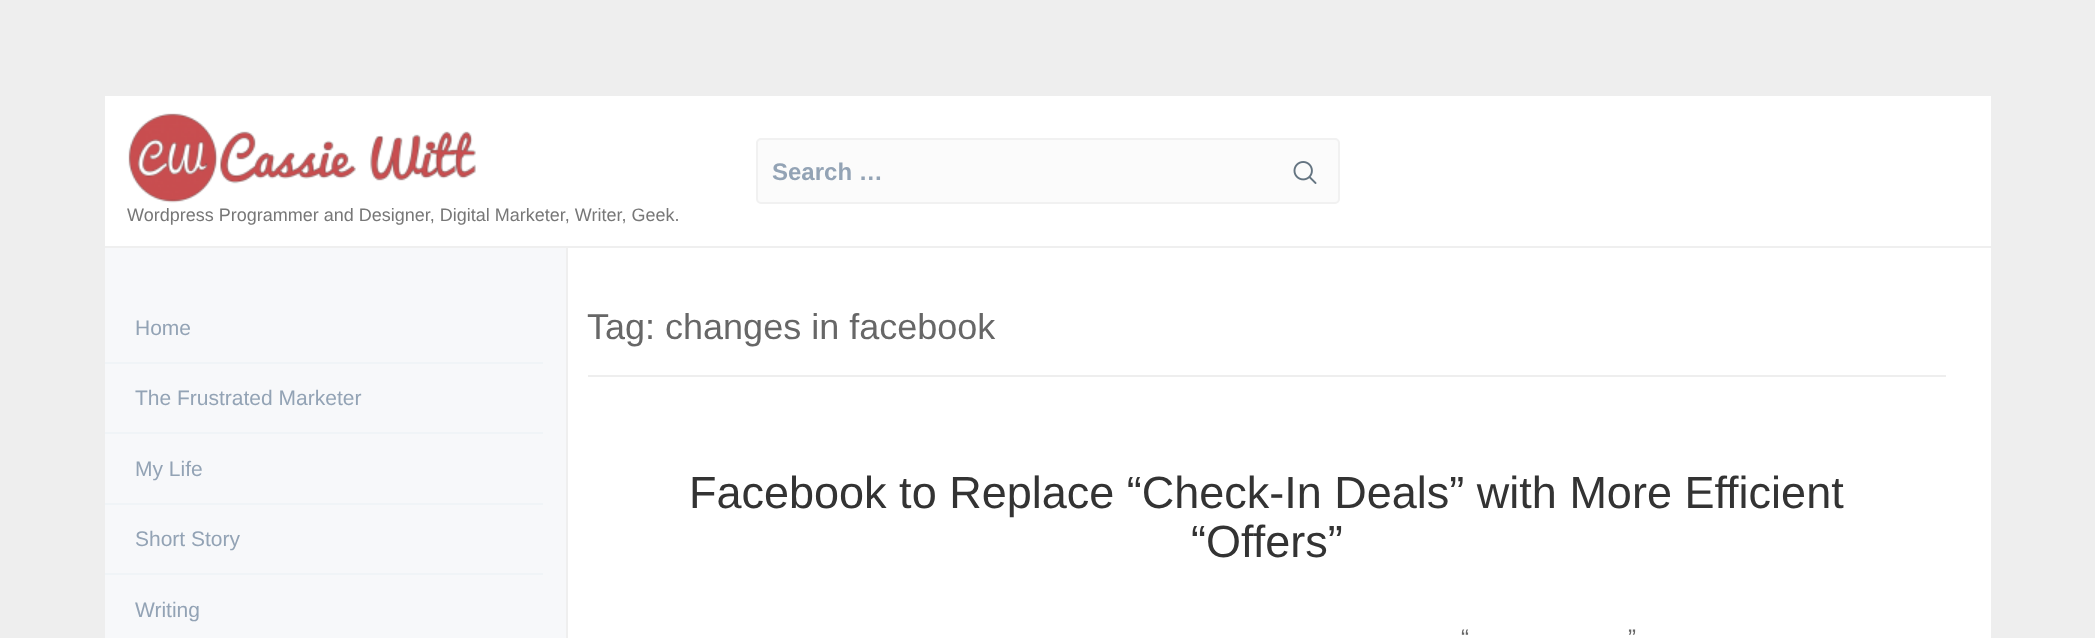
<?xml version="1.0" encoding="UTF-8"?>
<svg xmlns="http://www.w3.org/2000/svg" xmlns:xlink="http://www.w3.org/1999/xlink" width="2095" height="638">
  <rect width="100%" height="100%" fill="#eeeeee" />
  <rect x="105" y="96" width="1886" height="542" fill="#ffffff" />
  <rect x="105" y="246" width="1886" height="2" fill="#efefef" />
  <rect x="757" y="139" width="582" height="64" rx="4" fill="#fbfbfb" stroke="#f1f1f1" stroke-width="2" />
  <image x="1293" y="161" width="24" height="23" xlink:href="image1.png" />
  <image x="128" y="113" width="348" height="90" xlink:href="image2.png" />
  <rect x="105" y="248" width="461" height="390" fill="#f7f8fa" />
  <rect x="566" y="248" width="2" height="390" fill="#efefef" />
  <rect x="105" y="362" width="438" height="2" fill="#f0f4f7" />
  <rect x="105" y="432" width="438" height="2" fill="#f0f4f7" />
  <rect x="105" y="503" width="438" height="2" fill="#f0f4f7" />
  <rect x="105" y="573" width="438" height="2" fill="#f0f4f7" />
  <rect x="588" y="375" width="1358" height="2" fill="#eeeeee" />
  <text x="772" y="180" style="font-family: Liberation Sans; font-size: 24px; font-weight: bold; fill: #93a3b5">Search …</text>
  <text x="127" y="221" style="font-family: Liberation Sans; font-size: 18px; fill: #777777">Wordpress Programmer and Designer, Digital Marketer, Writer, Geek.</text>
  <text x="135" y="335" style="font-family: Liberation Sans; font-size: 21px; fill: #93a3b5">Home</text>
  <text x="135" y="405" style="font-family: Liberation Sans; font-size: 21px; fill: #93a3b5">The Frustrated Marketer</text>
  <text x="135" y="476" style="font-family: Liberation Sans; font-size: 21px; fill: #93a3b5">My Life</text>
  <text x="135" y="546" style="font-family: Liberation Sans; font-size: 21px; fill: #93a3b5">Short Story</text>
  <text x="135" y="617" style="font-family: Liberation Sans; font-size: 21px; fill: #93a3b5">Writing</text>
  <text x="587" y="339" style="font-family: Liberation Sans; font-size: 36px; fill: #676767">Tag: changes in facebook</text>
  <text x="689" y="508" style="font-family: Liberation Sans; font-size: 45px; fill: #333333">Facebook to Replace “Check-In Deals” with More Efficient</text>
  <text x="1191" y="557" style="font-family: Liberation Sans; font-size: 45px; fill: #333333">“Offers”</text>
  <text x="1461" y="646" style="font-family: Liberation Sans; font-size: 24px; fill: #676767">“</text>
  <text x="1628" y="646" style="font-family: Liberation Sans; font-size: 24px; fill: #676767">”</text>
</svg>
